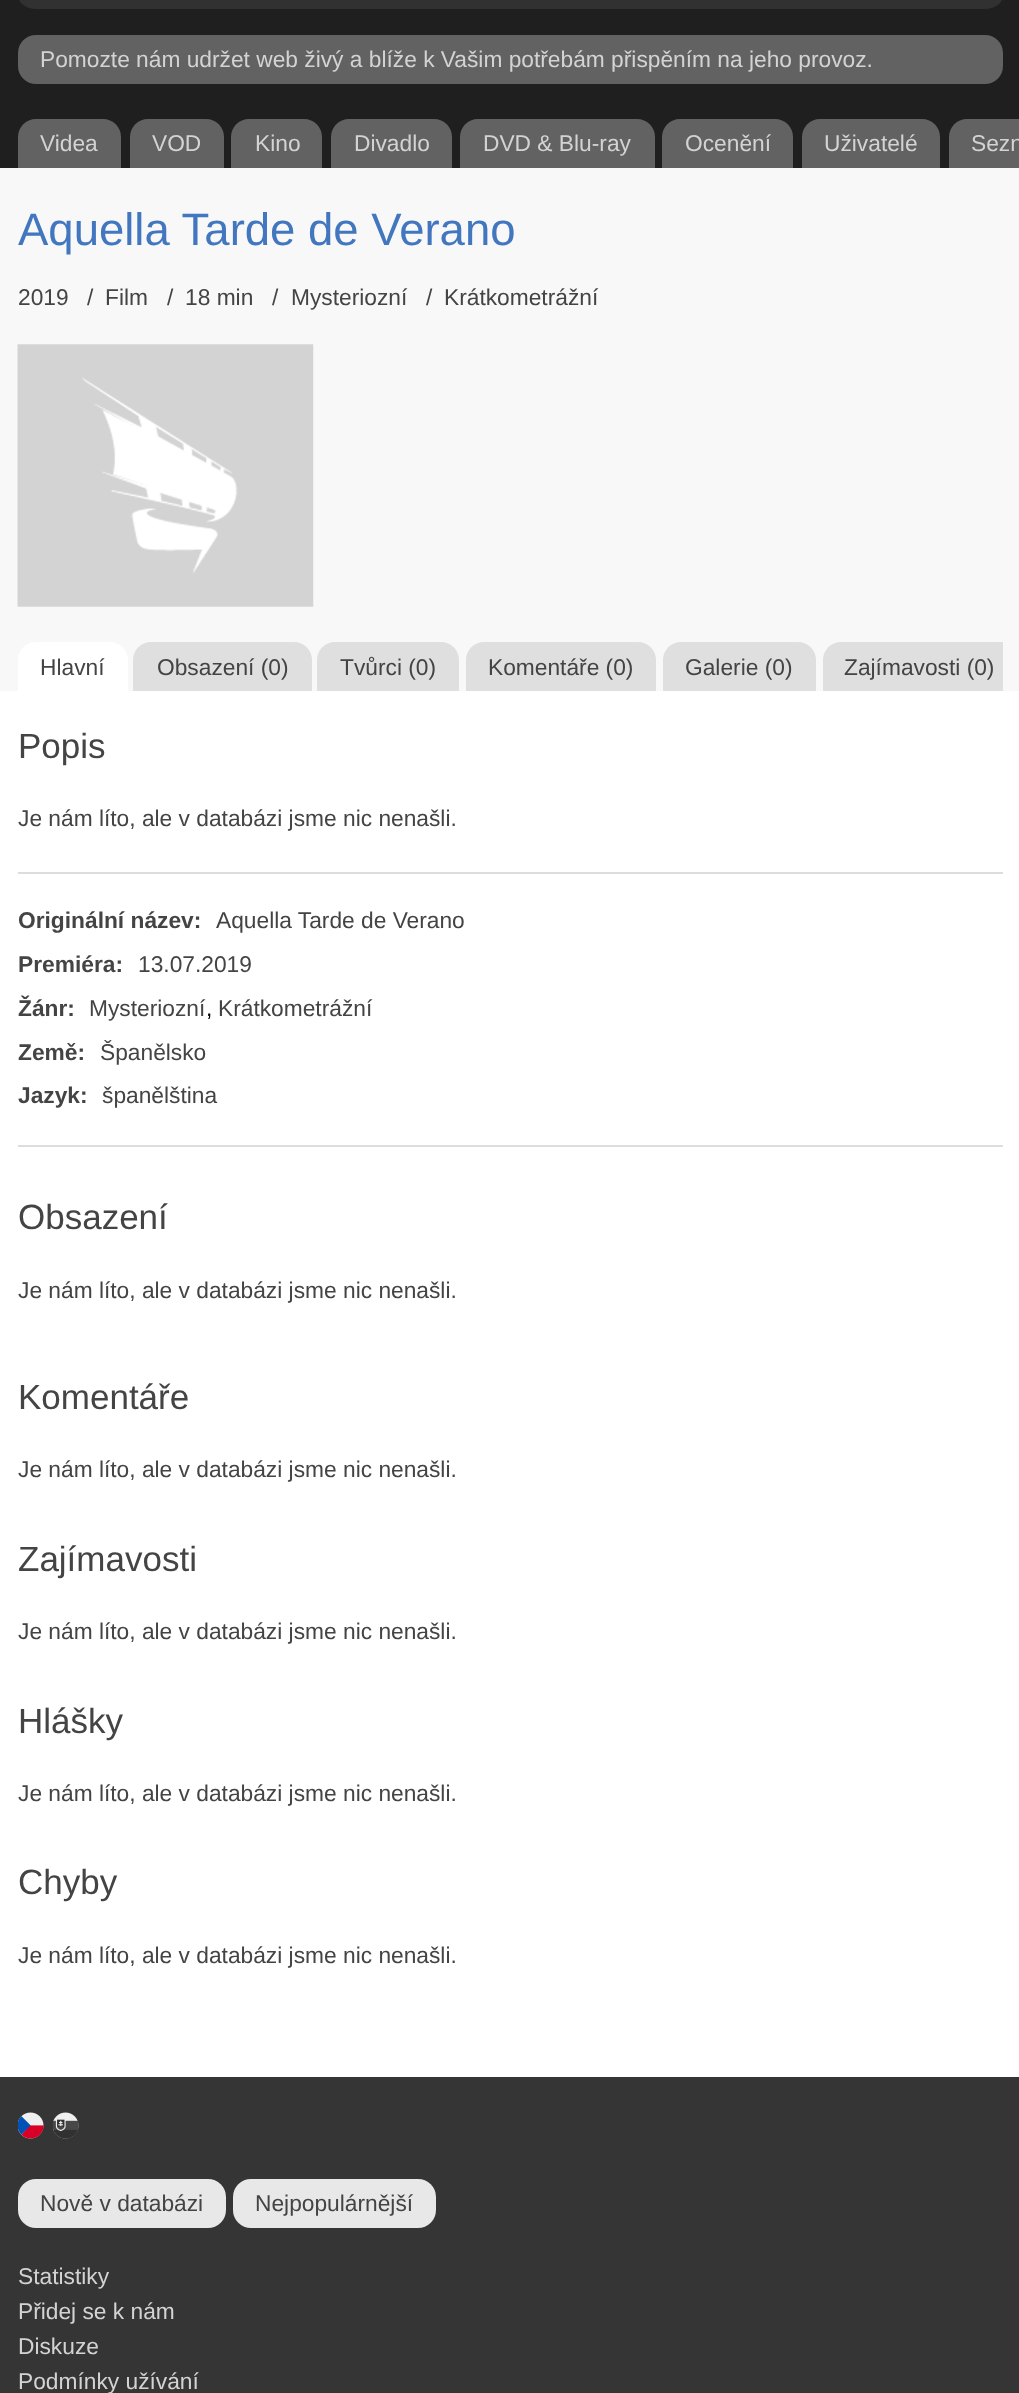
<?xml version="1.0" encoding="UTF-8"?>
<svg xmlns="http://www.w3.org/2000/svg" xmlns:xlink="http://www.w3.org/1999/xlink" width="1019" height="2393">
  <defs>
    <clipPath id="clip1"><rect x="18" y="642" width="985" height="49" /></clipPath>
  </defs>
  <rect width="100%" height="100%" fill="#ffffff" />
  <rect width="1019" height="168" fill="#1f1f1f" />
  <rect x="18" y="-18" width="985" height="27" rx="18" fill="#313131" />
  <rect x="18" y="35" width="985" height="49" rx="18" fill="#626262" />
  <path d="M 36 119 h 67 c 10 0 18 8 18 18 v 31 h -103 v -31 c 0 -10 8 -18 18 -18 z" fill="#626262" />
  <path d="M 148 119 h 58 c 10 0 18 8 18 18 v 31 h -94 v -31 c 0 -10 8 -18 18 -18 z" fill="#626262" />
  <path d="M 249 119 h 55 c 10 0 18 8 18 18 v 31 h -91 v -31 c 0 -10 8 -18 18 -18 z" fill="#626262" />
  <path d="M 349 119 h 85 c 10 0 18 8 18 18 v 31 h -121 v -31 c 0 -10 8 -18 18 -18 z" fill="#626262" />
  <path d="M 478 119 h 159 c 10 0 18 8 18 18 v 31 h -195 v -31 c 0 -10 8 -18 18 -18 z" fill="#626262" />
  <path d="M 680 119 h 95 c 10 0 18 8 18 18 v 31 h -131 v -31 c 0 -10 8 -18 18 -18 z" fill="#626262" />
  <path d="M 820 119 h 102 c 10 0 18 8 18 18 v 31 h -138 v -31 c 0 -10 8 -18 18 -18 z" fill="#626262" />
  <path d="M 967 119 h 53 v 49 h -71 v -31 c 0 -10 8 -18 18 -18 z" fill="#626262" />
  <rect y="168" width="1019" height="523" fill="#f8f8f8" />
  <image x="17" y="344" width="297" height="263" xlink:href="image1.png" />
  <path d="M 36 642 h 74 c 10 0 18 8 18 18 v 31 h -110 v -31 c 0 -10 8 -18 18 -18 z" fill="#ffffff" />
  <path d="M 151 642 h 143 c 10 0 18 8 18 18 v 31 h -179 v -31 c 0 -10 8 -18 18 -18 z" fill="#dfdfdf" />
  <path d="M 335 642 h 106 c 10 0 18 8 18 18 v 31 h -142 v -31 c 0 -10 8 -18 18 -18 z" fill="#dfdfdf" />
  <path d="M 484 642 h 154 c 10 0 18 8 18 18 v 31 h -190 v -31 c 0 -10 8 -18 18 -18 z" fill="#dfdfdf" />
  <path d="M 681 642 h 117 c 10 0 18 8 18 18 v 31 h -153 v -31 c 0 -10 8 -18 18 -18 z" fill="#dfdfdf" />
  <g clip-path="url(#clip1)">
    <path d="M 841 642 h 160 c 10 0 18 8 18 18 v 31 h -196 v -31 c 0 -10 8 -18 18 -18 z" fill="#dfdfdf" />
  </g>
  <rect x="18" y="872" width="985" height="2" fill="#dddddd" />
  <rect x="18" y="1145" width="985" height="2" fill="#dddddd" />
  <rect y="2077" width="1019" height="316" fill="#353535" />
  <image x="18" y="2112" width="26" height="27" xlink:href="image2.png" />
  <image x="53" y="2112" width="26" height="27" xlink:href="image3.png" />
  <rect x="18" y="2179" width="208" height="49" rx="18" fill="#e8e8e8" />
  <rect x="233" y="2179" width="203" height="49" rx="18" fill="#e8e8e8" />
  <text x="40" y="67" style="font-family: Liberation Sans; font-size: 22.75px; fill: #d3d3d3">Pomozte nám udržet web živý a blíže k Vašim potřebám přispěním na jeho provoz.</text>
  <text x="40" y="151" style="font-family: Liberation Sans; font-size: 22.75px; fill: #d3d3d3">Videa</text>
  <text x="152" y="151" style="font-family: Liberation Sans; font-size: 22.75px; fill: #d3d3d3">VOD</text>
  <text x="255" y="151" style="font-family: Liberation Sans; font-size: 22.75px; fill: #d3d3d3">Kino</text>
  <text x="354" y="151" style="font-family: Liberation Sans; font-size: 22.75px; fill: #d3d3d3">Divadlo</text>
  <text x="483" y="151" style="font-family: Liberation Sans; font-size: 22.75px; fill: #d3d3d3">DVD &amp; Blu-ray</text>
  <text x="685" y="151" style="font-family: Liberation Sans; font-size: 22.75px; fill: #d3d3d3">Ocenění</text>
  <text x="824" y="151" style="font-family: Liberation Sans; font-size: 22.75px; fill: #d3d3d3">Uživatelé</text>
  <text x="971" y="151" style="font-family: Liberation Sans; font-size: 22.75px; fill: #d3d3d3">Sezn</text>
  <text x="18" y="245" style="font-family: Liberation Sans; font-size: 45.5px; fill: #4277c0">Aquella Tarde de Verano</text>
  <text x="18" y="305" style="font-family: Liberation Sans; font-size: 22.75px; fill: #444444">2019</text>
  <text x="87" y="305" style="font-family: Liberation Sans; font-size: 22.75px; fill: #444444">/</text>
  <text x="105" y="305" style="font-family: Liberation Sans; font-size: 22.75px; fill: #444444">Film</text>
  <text x="167" y="305" style="font-family: Liberation Sans; font-size: 22.75px; fill: #444444">/</text>
  <text x="185" y="305" style="font-family: Liberation Sans; font-size: 22.75px; fill: #444444">18 min</text>
  <text x="272" y="305" style="font-family: Liberation Sans; font-size: 22.75px; fill: #444444">/</text>
  <text x="291" y="305" style="font-family: Liberation Sans; font-size: 22.75px; fill: #444444">Mysteriozní</text>
  <text x="426" y="305" style="font-family: Liberation Sans; font-size: 22.75px; fill: #444444">/</text>
  <text x="444" y="305" style="font-family: Liberation Sans; font-size: 22.75px; fill: #444444">Krátkometrážní</text>
  <text x="40" y="675" style="font-family: Liberation Sans; font-size: 22.75px; fill: #444444">Hlavní</text>
  <text x="157" y="675" style="font-family: Liberation Sans; font-size: 22.75px; fill: #444444">Obsazení (0)</text>
  <text x="340" y="675" style="font-family: Liberation Sans; font-size: 22.75px; fill: #444444">Tvůrci (0)</text>
  <text x="488" y="675" style="font-family: Liberation Sans; font-size: 22.75px; fill: #444444">Komentáře (0)</text>
  <text x="685" y="675" style="font-family: Liberation Sans; font-size: 22.75px; fill: #444444">Galerie (0)</text>
  <text x="844" y="675" style="font-family: Liberation Sans; font-size: 22.75px; fill: #444444">Zajímavosti (0)</text>
  <text x="18" y="758" style="font-family: Liberation Sans; font-size: 35px; fill: #444444">Popis</text>
  <text x="18" y="826" style="font-family: Liberation Sans; font-size: 22.75px; fill: #444444">Je nám líto, ale v databázi jsme nic nenašli.</text>
  <text x="18" y="928" style="font-family: Liberation Sans; font-size: 22.75px; font-weight: bold; fill: #444444">Originální název:</text>
  <text x="216" y="928" style="font-family: Liberation Sans; font-size: 22.75px; fill: #444444">Aquella Tarde de Verano</text>
  <text x="18" y="972" style="font-family: Liberation Sans; font-size: 22.75px; font-weight: bold; fill: #444444">Premiéra:</text>
  <text x="138" y="972" style="font-family: Liberation Sans; font-size: 22.75px; fill: #444444">13.07.2019</text>
  <text x="18" y="1016" style="font-family: Liberation Sans; font-size: 22.75px; font-weight: bold; fill: #444444">Žánr:</text>
  <text x="89" y="1016" style="font-family: Liberation Sans; font-size: 22.75px; fill: #444444">Mysteriozní</text>
  <text x="206" y="1016" style="font-family: Liberation Sans; font-size: 22.75px; fill: #000000">,</text>
  <text x="218" y="1016" style="font-family: Liberation Sans; font-size: 22.75px; fill: #444444">Krátkometrážní</text>
  <text x="18" y="1060" style="font-family: Liberation Sans; font-size: 22.75px; font-weight: bold; fill: #444444">Země:</text>
  <text x="100" y="1060" style="font-family: Liberation Sans; font-size: 22.75px; fill: #444444">Španělsko</text>
  <text x="18" y="1103" style="font-family: Liberation Sans; font-size: 22.75px; font-weight: bold; fill: #444444">Jazyk:</text>
  <text x="102" y="1103" style="font-family: Liberation Sans; font-size: 22.75px; fill: #444444">španělština</text>
  <text x="18" y="1229" style="font-family: Liberation Sans; font-size: 35px; fill: #444444">Obsazení</text>
  <text x="18" y="1298" style="font-family: Liberation Sans; font-size: 22.75px; fill: #444444">Je nám líto, ale v databázi jsme nic nenašli.</text>
  <text x="18" y="1409" style="font-family: Liberation Sans; font-size: 35px; fill: #444444">Komentáře</text>
  <text x="18" y="1477" style="font-family: Liberation Sans; font-size: 22.75px; fill: #444444">Je nám líto, ale v databázi jsme nic nenašli.</text>
  <text x="18" y="1571" style="font-family: Liberation Sans; font-size: 35px; fill: #444444">Zajímavosti</text>
  <text x="18" y="1639" style="font-family: Liberation Sans; font-size: 22.75px; fill: #444444">Je nám líto, ale v databázi jsme nic nenašli.</text>
  <text x="18" y="1733" style="font-family: Liberation Sans; font-size: 35px; fill: #444444">Hlášky</text>
  <text x="18" y="1801" style="font-family: Liberation Sans; font-size: 22.75px; fill: #444444">Je nám líto, ale v databázi jsme nic nenašli.</text>
  <text x="18" y="1894" style="font-family: Liberation Sans; font-size: 35px; fill: #444444">Chyby</text>
  <text x="18" y="1963" style="font-family: Liberation Sans; font-size: 22.75px; fill: #444444">Je nám líto, ale v databázi jsme nic nenašli.</text>
  <text x="40" y="2211" style="font-family: Liberation Sans; font-size: 22.75px; fill: #444444">Nově v databázi</text>
  <text x="255" y="2211" style="font-family: Liberation Sans; font-size: 22.75px; fill: #444444">Nejpopulárnější</text>
  <text x="18" y="2284" style="font-family: Liberation Sans; font-size: 22.75px; fill: #d3d3d3">Statistiky</text>
  <text x="18" y="2319" style="font-family: Liberation Sans; font-size: 22.75px; fill: #d3d3d3">Přidej se k nám</text>
  <text x="18" y="2354" style="font-family: Liberation Sans; font-size: 22.75px; fill: #d3d3d3">Diskuze</text>
  <text x="18" y="2389" style="font-family: Liberation Sans; font-size: 22.75px; fill: #d3d3d3">Podmínky užívání</text>
</svg>
